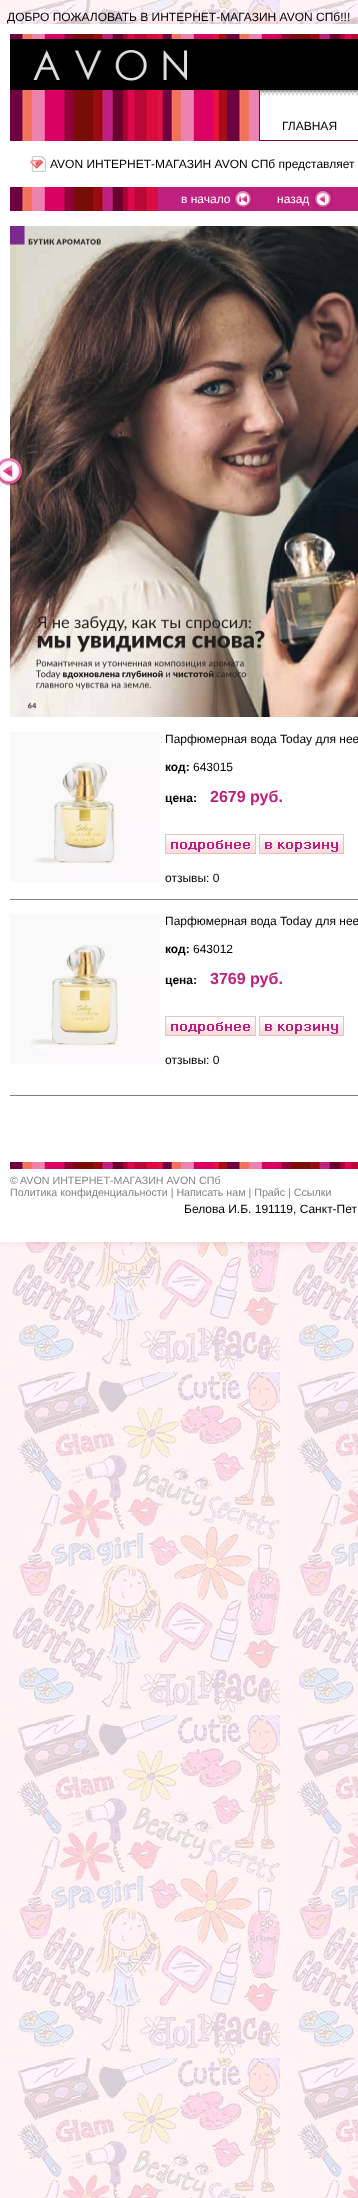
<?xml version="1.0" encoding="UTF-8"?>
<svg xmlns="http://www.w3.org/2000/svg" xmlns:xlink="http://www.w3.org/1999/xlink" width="358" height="2198">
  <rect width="100%" height="100%" fill="#ffffff" />
  <image x="0" y="0" width="358" height="2198" xlink:href="image1.png" />
  <rect x="33" y="39" width="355" height="1188" fill="#b74d52" filter="blur(10px)" />
  <rect x="-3" y="39" width="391" height="1188" fill="#b74d52" filter="blur(10px)" />
  <rect y="24" width="358" height="1218" fill="#ffffff" />
  <image x="10" y="34" width="348" height="5" xlink:href="image2.png" />
  <rect x="10" y="39" width="348" height="51" fill="#000000" />
  <image x="33" y="50" width="154" height="31" xlink:href="image3.png" />
  <image x="10" y="90" width="249" height="51" xlink:href="image4.png" />
  <rect x="259" y="90" width="1" height="51" fill="#6d0633" />
  <image x="260" y="90" width="98" height="6" xlink:href="image5.png" />
  <rect x="260" y="140" width="98" height="1" fill="#6d0633" />
  <image x="30" y="156" width="16" height="16" xlink:href="image6.png" />
  <image x="10" y="187" width="148" height="24" xlink:href="image7.png" />
  <rect x="158" y="187" width="200" height="24" fill="#bf2180" />
  <image x="232" y="188" width="22" height="22" xlink:href="image8.png" />
  <image x="312" y="188" width="22" height="22" xlink:href="image9.png" />
  <image x="10" y="226" width="348" height="491" xlink:href="image10.png" />
  <image x="0" y="458" width="24" height="28" xlink:href="image11.png" />
  <image x="10" y="732" width="150" height="150" xlink:href="image12.png" />
  <image x="165" y="834" width="91" height="20" xlink:href="image13.png" />
  <image x="259" y="834" width="85" height="20" xlink:href="image14.png" />
  <rect x="10" y="899" width="348" height="1" fill="#808080" />
  <image x="10" y="914" width="150" height="150" xlink:href="image15.png" />
  <image x="165" y="1016" width="91" height="20" xlink:href="image13.png" />
  <image x="259" y="1016" width="85" height="20" xlink:href="image14.png" />
  <rect x="10" y="1095" width="348" height="1" fill="#808080" />
  <image x="10" y="1162" width="348" height="7" xlink:href="image16.png" />
  <text x="7" y="21" style="font-family: Liberation Sans; font-size: 12px; fill: #000000">ДОБРО ПОЖАЛОВАТЬ В ИНТЕРНЕТ-МАГАЗИН AVON СПб!!!</text>
  <text x="282" y="130" style="font-family: Liberation Sans; font-size: 12px; fill: #000000">ГЛАВНАЯ</text>
  <text x="50" y="168" style="font-family: Liberation Sans; font-size: 12px; fill: #000000">AVON ИНТЕРНЕТ-МАГАЗИН AVON СПб представляет</text>
  <text x="181" y="203" style="font-family: Liberation Sans; font-size: 12px; fill: #ffffff">в начало</text>
  <text x="277" y="203" style="font-family: Liberation Sans; font-size: 12px; fill: #ffffff">назад</text>
  <text x="165" y="743" style="font-family: Liberation Sans; font-size: 12px; fill: #000000">Парфюмерная вода Today для нее</text>
  <text x="165" y="771" style="font-family: Liberation Sans; font-size: 12px; font-weight: bold; fill: #000000">код:</text>
  <text x="193" y="771" style="font-family: Liberation Sans; font-size: 12px; fill: #000000">643015</text>
  <text x="165" y="802" style="font-family: Liberation Sans; font-size: 12px; font-weight: bold; fill: #000000">цена:</text>
  <text x="210" y="802" style="font-family: Liberation Sans; font-size: 16px; font-weight: bold; fill: #bd207f">2679 руб.</text>
  <text x="165" y="882" style="font-family: Liberation Sans; font-size: 12px; fill: #000000">отзывы: 0</text>
  <text x="165" y="925" style="font-family: Liberation Sans; font-size: 12px; fill: #000000">Парфюмерная вода Today для нее</text>
  <text x="165" y="953" style="font-family: Liberation Sans; font-size: 12px; font-weight: bold; fill: #000000">код:</text>
  <text x="193" y="953" style="font-family: Liberation Sans; font-size: 12px; fill: #000000">643012</text>
  <text x="165" y="984" style="font-family: Liberation Sans; font-size: 12px; font-weight: bold; fill: #000000">цена:</text>
  <text x="210" y="984" style="font-family: Liberation Sans; font-size: 16px; font-weight: bold; fill: #bd207f">3769 руб.</text>
  <text x="165" y="1064" style="font-family: Liberation Sans; font-size: 12px; fill: #000000">отзывы: 0</text>
  <text x="10" y="1184" style="font-family: Liberation Sans; font-size: 10.7px; fill: #848484">©</text>
  <text x="20" y="1184" style="font-family: Liberation Sans; font-size: 10.7px; fill: #848484">AVON ИНТЕРНЕТ-МАГАЗИН AVON СПб</text>
  <text x="10" y="1196" style="font-family: Liberation Sans; font-size: 10.7px; fill: #848484">Политика конфиденциальности | Написать нам | Прайс | Ссылки</text>
  <text x="184" y="1213" style="font-family: Liberation Sans; font-size: 12px; fill: #000000">Белова И.Б. 191119, Санкт-Пет</text>
</svg>
